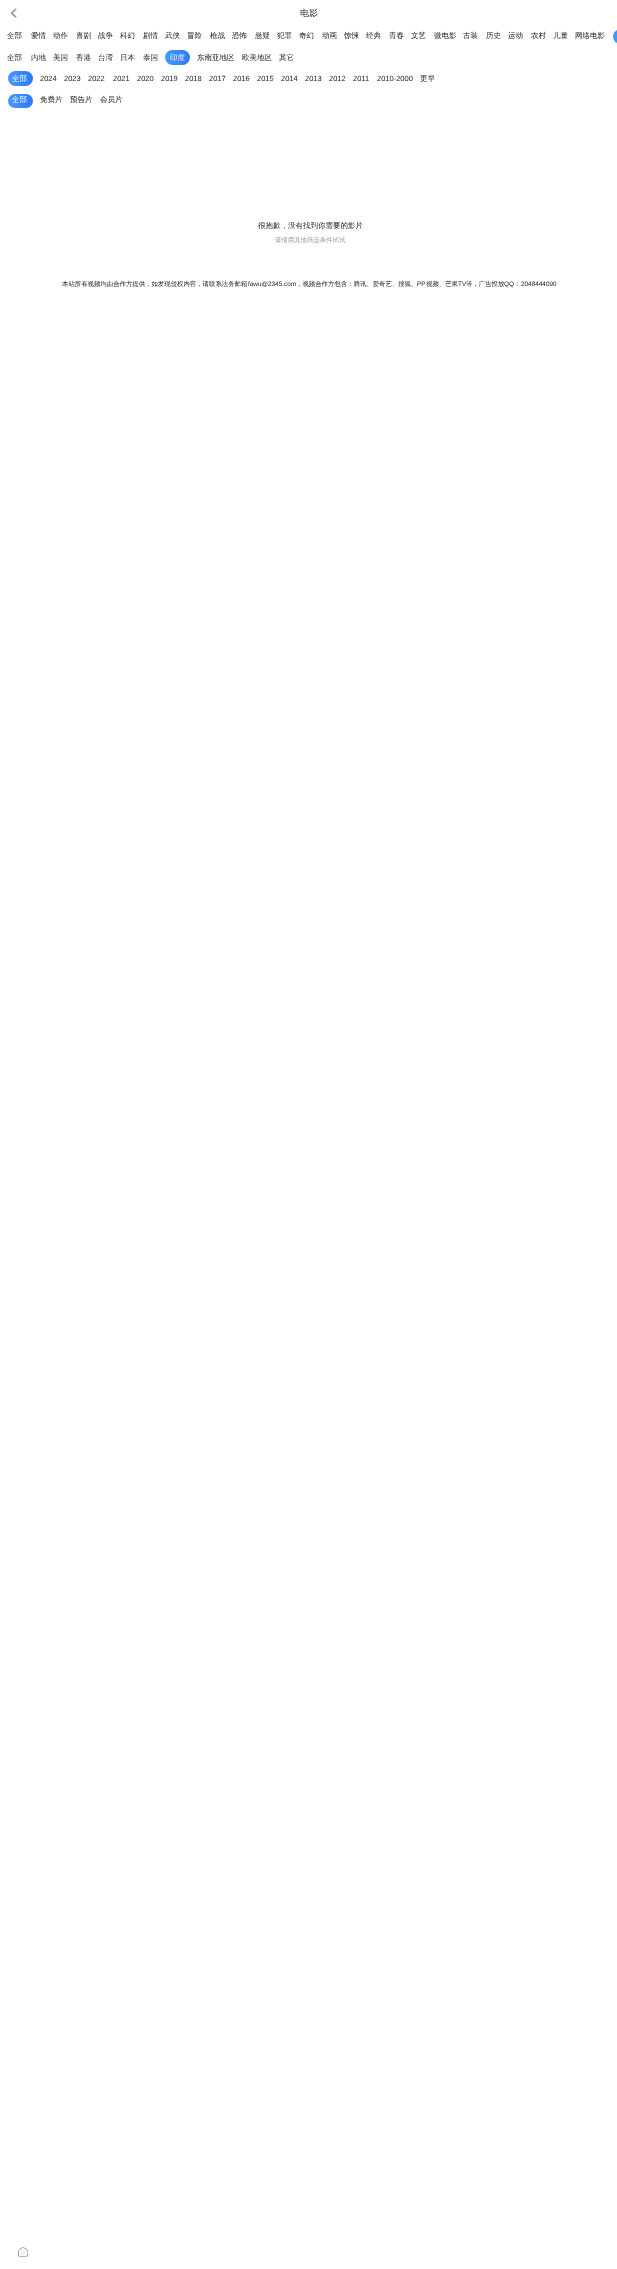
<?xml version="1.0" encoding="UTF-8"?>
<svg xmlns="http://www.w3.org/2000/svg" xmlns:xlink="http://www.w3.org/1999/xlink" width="617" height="2269">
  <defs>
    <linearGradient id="g1" gradientUnits="userSpaceOnUse" x1="613" y1="36" x2="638" y2="36"><stop offset="0" stop-color="#4698ff" /><stop offset="1" stop-color="#2c79ff" /></linearGradient>
    <linearGradient id="g2" gradientUnits="userSpaceOnUse" x1="165" y1="58" x2="190" y2="58"><stop offset="0" stop-color="#4698ff" /><stop offset="1" stop-color="#2c79ff" /></linearGradient>
    <linearGradient id="g3" gradientUnits="userSpaceOnUse" x1="7.5" y1="79" x2="33" y2="79"><stop offset="0" stop-color="#4698ff" /><stop offset="1" stop-color="#2c79ff" /></linearGradient>
    <linearGradient id="g4" gradientUnits="userSpaceOnUse" x1="7.5" y1="101" x2="33" y2="101"><stop offset="0" stop-color="#4698ff" /><stop offset="1" stop-color="#2c79ff" /></linearGradient>
  </defs>
  <rect width="100%" height="100%" fill="#ffffff" />
  <image x="11" y="8" width="6" height="10" xlink:href="image1.png" />
  <path d="M 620.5 29 h -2.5 v 15 h 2.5 c -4 0 -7.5 -3.5 -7.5 -7.5 c 0 -4 3.5 -7.5 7.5 -7.5 z" fill="url(#g1)" />
  <rect x="165" y="50" width="25" height="15" rx="7.5" fill="url(#g2)" />
  <rect x="8" y="71" width="25" height="15" rx="7.5" fill="url(#g3)" />
  <rect x="8" y="94" width="25" height="14" rx="7" fill="url(#g4)" />
  <image x="18" y="2247" width="10" height="10" xlink:href="image2.png" />
  <text x="300" y="16" style="font-family: WenQuanYi Zen Hei; font-size: 9px; font-weight: 500; fill: #222222">电影</text>
  <text x="7" y="38" style="font-family: WenQuanYi Zen Hei; font-size: 7.5px; font-weight: 500; fill: #222222">全部</text>
  <text x="31" y="38" style="font-family: WenQuanYi Zen Hei; font-size: 7.5px; font-weight: 500; fill: #222222">爱情</text>
  <text x="53" y="38" style="font-family: WenQuanYi Zen Hei; font-size: 7.5px; font-weight: 500; fill: #222222">动作</text>
  <text x="76" y="38" style="font-family: WenQuanYi Zen Hei; font-size: 7.5px; font-weight: 500; fill: #222222">喜剧</text>
  <text x="98" y="38" style="font-family: WenQuanYi Zen Hei; font-size: 7.5px; font-weight: 500; fill: #222222">战争</text>
  <text x="120" y="38" style="font-family: WenQuanYi Zen Hei; font-size: 7.5px; font-weight: 500; fill: #222222">科幻</text>
  <text x="143" y="38" style="font-family: WenQuanYi Zen Hei; font-size: 7.5px; font-weight: 500; fill: #222222">剧情</text>
  <text x="165" y="38" style="font-family: WenQuanYi Zen Hei; font-size: 7.5px; font-weight: 500; fill: #222222">武侠</text>
  <text x="187" y="38" style="font-family: WenQuanYi Zen Hei; font-size: 7.5px; font-weight: 500; fill: #222222">冒险</text>
  <text x="210" y="38" style="font-family: WenQuanYi Zen Hei; font-size: 7.5px; font-weight: 500; fill: #222222">枪战</text>
  <text x="232" y="38" style="font-family: WenQuanYi Zen Hei; font-size: 7.5px; font-weight: 500; fill: #222222">恐怖</text>
  <text x="255" y="38" style="font-family: WenQuanYi Zen Hei; font-size: 7.5px; font-weight: 500; fill: #222222">悬疑</text>
  <text x="277" y="38" style="font-family: WenQuanYi Zen Hei; font-size: 7.5px; font-weight: 500; fill: #222222">犯罪</text>
  <text x="299" y="38" style="font-family: WenQuanYi Zen Hei; font-size: 7.5px; font-weight: 500; fill: #222222">奇幻</text>
  <text x="322" y="38" style="font-family: WenQuanYi Zen Hei; font-size: 7.5px; font-weight: 500; fill: #222222">动画</text>
  <text x="344" y="38" style="font-family: WenQuanYi Zen Hei; font-size: 7.5px; font-weight: 500; fill: #222222">惊悚</text>
  <text x="366" y="38" style="font-family: WenQuanYi Zen Hei; font-size: 7.5px; font-weight: 500; fill: #222222">经典</text>
  <text x="389" y="38" style="font-family: WenQuanYi Zen Hei; font-size: 7.5px; font-weight: 500; fill: #222222">青春</text>
  <text x="411" y="38" style="font-family: WenQuanYi Zen Hei; font-size: 7.5px; font-weight: 500; fill: #222222">文艺</text>
  <text x="434" y="38" style="font-family: WenQuanYi Zen Hei; font-size: 7.5px; font-weight: 500; fill: #222222">微电影</text>
  <text x="463" y="38" style="font-family: WenQuanYi Zen Hei; font-size: 7.5px; font-weight: 500; fill: #222222">古装</text>
  <text x="486" y="38" style="font-family: WenQuanYi Zen Hei; font-size: 7.5px; font-weight: 500; fill: #222222">历史</text>
  <text x="508" y="38" style="font-family: WenQuanYi Zen Hei; font-size: 7.5px; font-weight: 500; fill: #222222">运动</text>
  <text x="531" y="38" style="font-family: WenQuanYi Zen Hei; font-size: 7.5px; font-weight: 500; fill: #222222">农村</text>
  <text x="553" y="38" style="font-family: WenQuanYi Zen Hei; font-size: 7.5px; font-weight: 500; fill: #222222">儿童</text>
  <text x="575" y="38" style="font-family: WenQuanYi Zen Hei; font-size: 7.5px; font-weight: 500; fill: #222222">网络电影</text>
  <text x="7" y="60" style="font-family: WenQuanYi Zen Hei; font-size: 7.5px; font-weight: 500; fill: #222222">全部</text>
  <text x="31" y="60" style="font-family: WenQuanYi Zen Hei; font-size: 7.5px; font-weight: 500; fill: #222222">内地</text>
  <text x="53" y="60" style="font-family: WenQuanYi Zen Hei; font-size: 7.5px; font-weight: 500; fill: #222222">美国</text>
  <text x="76" y="60" style="font-family: WenQuanYi Zen Hei; font-size: 7.5px; font-weight: 500; fill: #222222">香港</text>
  <text x="98" y="60" style="font-family: WenQuanYi Zen Hei; font-size: 7.5px; font-weight: 500; fill: #222222">台湾</text>
  <text x="120" y="60" style="font-family: WenQuanYi Zen Hei; font-size: 7.5px; font-weight: 500; fill: #222222">日本</text>
  <text x="143" y="60" style="font-family: WenQuanYi Zen Hei; font-size: 7.5px; font-weight: 500; fill: #222222">泰国</text>
  <text x="170" y="60" style="font-family: WenQuanYi Zen Hei; font-size: 7.5px; font-weight: 500; fill: #ffffff">印度</text>
  <text x="197" y="60" style="font-family: WenQuanYi Zen Hei; font-size: 7.5px; font-weight: 500; fill: #222222">东南亚地区</text>
  <text x="242" y="60" style="font-family: WenQuanYi Zen Hei; font-size: 7.5px; font-weight: 500; fill: #222222">欧美地区</text>
  <text x="279" y="60" style="font-family: WenQuanYi Zen Hei; font-size: 7.5px; font-weight: 500; fill: #222222">其它</text>
  <text x="12" y="81" style="font-family: WenQuanYi Zen Hei; font-size: 7.5px; font-weight: 500; fill: #ffffff">全部</text>
  <text x="40" y="81" style="font-family: Liberation Sans; font-size: 7.5px; fill: #222222">2024</text>
  <text x="64" y="81" style="font-family: Liberation Sans; font-size: 7.5px; fill: #222222">2023</text>
  <text x="88" y="81" style="font-family: Liberation Sans; font-size: 7.5px; fill: #222222">2022</text>
  <text x="113" y="81" style="font-family: Liberation Sans; font-size: 7.5px; fill: #222222">2021</text>
  <text x="137" y="81" style="font-family: Liberation Sans; font-size: 7.5px; fill: #222222">2020</text>
  <text x="161" y="81" style="font-family: Liberation Sans; font-size: 7.5px; fill: #222222">2019</text>
  <text x="185" y="81" style="font-family: Liberation Sans; font-size: 7.5px; fill: #222222">2018</text>
  <text x="209" y="81" style="font-family: Liberation Sans; font-size: 7.5px; fill: #222222">2017</text>
  <text x="233" y="81" style="font-family: Liberation Sans; font-size: 7.5px; fill: #222222">2016</text>
  <text x="257" y="81" style="font-family: Liberation Sans; font-size: 7.5px; fill: #222222">2015</text>
  <text x="281" y="81" style="font-family: Liberation Sans; font-size: 7.5px; fill: #222222">2014</text>
  <text x="305" y="81" style="font-family: Liberation Sans; font-size: 7.5px; fill: #222222">2013</text>
  <text x="329" y="81" style="font-family: Liberation Sans; font-size: 7.5px; fill: #222222">2012</text>
  <text x="353" y="81" style="font-family: Liberation Sans; font-size: 7.5px; fill: #222222">2011</text>
  <text x="377" y="81" style="font-family: Liberation Sans; font-size: 7.5px; fill: #222222">2010-2000</text>
  <text x="420" y="81" style="font-family: WenQuanYi Zen Hei; font-size: 7.5px; font-weight: 500; fill: #222222">更早</text>
  <text x="12" y="102" style="font-family: WenQuanYi Zen Hei; font-size: 7.5px; font-weight: 500; fill: #ffffff">全部</text>
  <text x="40" y="102" style="font-family: WenQuanYi Zen Hei; font-size: 7.5px; font-weight: 500; fill: #222222">免费片</text>
  <text x="70" y="102" style="font-family: WenQuanYi Zen Hei; font-size: 7.5px; font-weight: 500; fill: #222222">预告片</text>
  <text x="100" y="102" style="font-family: WenQuanYi Zen Hei; font-size: 7.5px; font-weight: 500; fill: #222222">会员片</text>
  <text x="258" y="228" style="font-family: WenQuanYi Zen Hei; font-size: 7.5px; font-weight: 500; fill: #222222">很抱歉，没有找到你需要的影片</text>
  <text x="275" y="242" style="font-family: WenQuanYi Zen Hei; font-size: 6.4px; font-weight: 500; fill: #999999">请使用其他筛选条件试试</text>
  <text x="62" y="286" style="font-family: WenQuanYi Zen Hei; font-size: 6.4px; font-weight: 500; fill: #222222">本站所有视频均由合作方提供，如发现侵权内容，请联系法务邮箱</text>
  <text x="248" y="286" style="font-family: Liberation Sans; font-size: 6.4px; fill: #222222">fawu@2345.com</text>
  <text x="296" y="286" style="font-family: WenQuanYi Zen Hei; font-size: 6.4px; font-weight: 500; fill: #222222">，视频合作方包含：腾讯、爱奇艺、搜狐、</text>
  <text x="417" y="286" style="font-family: Liberation Sans; font-size: 6.4px; fill: #222222">PP</text>
  <text x="426" y="286" style="font-family: WenQuanYi Zen Hei; font-size: 6.4px; font-weight: 500; fill: #222222">视频、芒果</text>
  <text x="458" y="286" style="font-family: Liberation Sans; font-size: 6.4px; fill: #222222">TV</text>
  <text x="466" y="286" style="font-family: WenQuanYi Zen Hei; font-size: 6.4px; font-weight: 500; fill: #222222">等，广告投放</text>
  <text x="504" y="286" style="font-family: Liberation Sans; font-size: 6.4px; fill: #222222">QQ</text>
  <text x="514" y="286" style="font-family: WenQuanYi Zen Hei; font-size: 6.4px; font-weight: 500; fill: #222222">：</text>
  <text x="521" y="286" style="font-family: Liberation Sans; font-size: 6.4px; fill: #222222">2048444090</text>
</svg>
